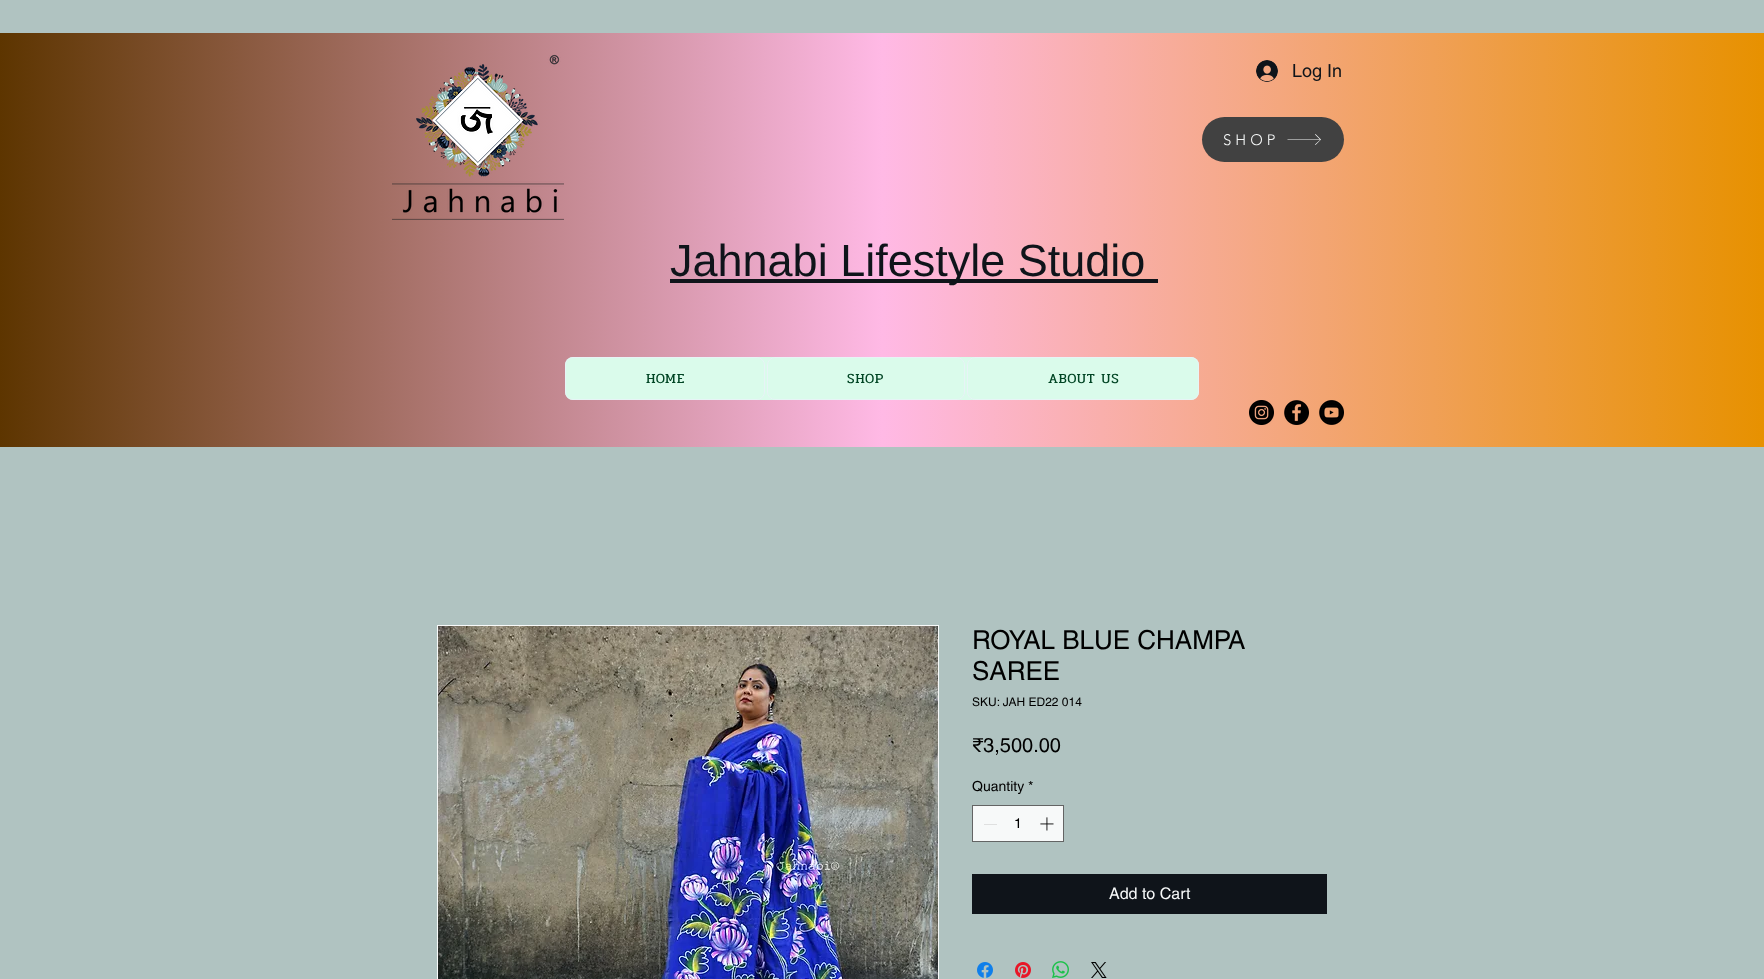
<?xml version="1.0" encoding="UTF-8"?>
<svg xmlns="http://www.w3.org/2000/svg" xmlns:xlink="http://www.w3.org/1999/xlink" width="1764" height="979">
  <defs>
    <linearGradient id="g1" gradientUnits="userSpaceOnUse" x1="0" y1="240" x2="1764" y2="240"><stop offset="0" stop-color="#5d3500" /><stop offset="0.5" stop-color="#ffb9e5" /><stop offset="1" stop-color="#e79100" /></linearGradient>
  </defs>
  <rect width="100%" height="100%" fill="#b0c3c1" />
  <rect y="33" width="1764" height="414" fill="url(#g1)" />
  <image x="392" y="54" width="172" height="166" xlink:href="image1.png" />
  <image x="1256" y="60" width="22" height="22" xlink:href="image2.png" />
  <rect x="1202" y="117" width="142" height="45" rx="22.5" fill="#414141" />
  <path d="M 1315.5 134 l -0.5 0.5 l 5 5 h -32.5 v 0.5 h 32.5 l -5 4.5 l 0.5 0.5 l 5.5 -5.5 z" fill="#f7f9f9" />
  <rect x="670" y="279" width="488" height="4" fill="#0f141a" />
  <rect x="565" y="357" width="634" height="43" rx="8" fill="#dafbeb" />
  <rect x="565.5" y="357.5" width="199" height="42" rx="7.5" fill="none" stroke="#e7f4f6" />
  <rect x="767.5" y="357.5" width="197" height="42" rx="7.5" fill="none" stroke="#e7f4f6" />
  <rect x="967.5" y="357.5" width="231" height="42" rx="7.5" fill="none" stroke="#e7f4f6" />
  <image x="1249" y="400" width="25" height="25" xlink:href="image3.png" />
  <image x="1284" y="400" width="25" height="25" xlink:href="image4.png" />
  <image x="1319" y="400" width="25" height="25" xlink:href="image5.png" />
  <rect x="437.5" y="625.5" width="501" height="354" fill="none" stroke="#f8fafa" />
  <image x="438" y="626" width="500" height="353" xlink:href="image6.png" />
  <rect x="972.5" y="805.5" width="91" height="36" fill="#f7f9f9" stroke="#636464" />
  <rect x="984" y="824" width="13" height="1" fill="#dfe0e0" />
  <image x="1040" y="817" width="14" height="14" xlink:href="image7.png" />
  <rect x="972" y="874" width="355" height="40" fill="#0f141a" />
  <image x="977" y="962" width="16" height="16" xlink:href="image8.png" />
  <image x="1015" y="962" width="16" height="16" xlink:href="image9.png" />
  <image x="1052" y="961" width="17" height="17" xlink:href="image10.png" />
  <image x="1091" y="962" width="16" height="16" xlink:href="image11.png" />
  <text x="1292" y="77" style="font-family: helvetica; font-size: 18px; fill: #0f141a">Log In</text>
  <text x="1223" y="145" style="font-family: 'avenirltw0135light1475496'; font-size: 15px; font-weight: 300; letter-spacing: 4px; fill: #f7f9f9">SHOP</text>
  <text x="670" y="276" style="font-family: Liberation Sans; font-size: 45px; fill: #0f141a">Jahnabi Lifestyle Studio</text>
  <text x="646" y="383" style="font-family: Pridi; font-size: 14px; letter-spacing: 0.75px; fill: #004524">HOME</text>
  <text x="847" y="383" style="font-family: Pridi; font-size: 14px; letter-spacing: 0.75px; fill: #004524">SHOP</text>
  <text x="1048" y="383" style="font-family: Pridi; font-size: 14px; letter-spacing: 0.75px; fill: #004524">ABOUT US</text>
  <text x="972" y="649" style="font-family: helvetica; font-size: 26px; fill: #000000">ROYAL BLUE CHAMPA</text>
  <text x="972" y="680" style="font-family: helvetica; font-size: 26px; fill: #000000">SAREE</text>
  <text x="972" y="706" style="font-family: helvetica; font-size: 12px; fill: #000000">SKU: JAH ED22 014</text>
  <text x="972" y="752" style="font-family: helvetica; font-size: 20px; fill: #000000">₹3,500.00</text>
  <text x="972" y="791" style="font-family: helvetica; font-size: 14px; fill: #000000">Quantity *</text>
  <text x="1014" y="828" style="font-family: helvetica; font-size: 14px; fill: #000000">1</text>
  <text x="1109" y="899" style="font-family: helvetica; font-size: 16px; fill: #f7f9f9">Add to Cart</text>
</svg>
